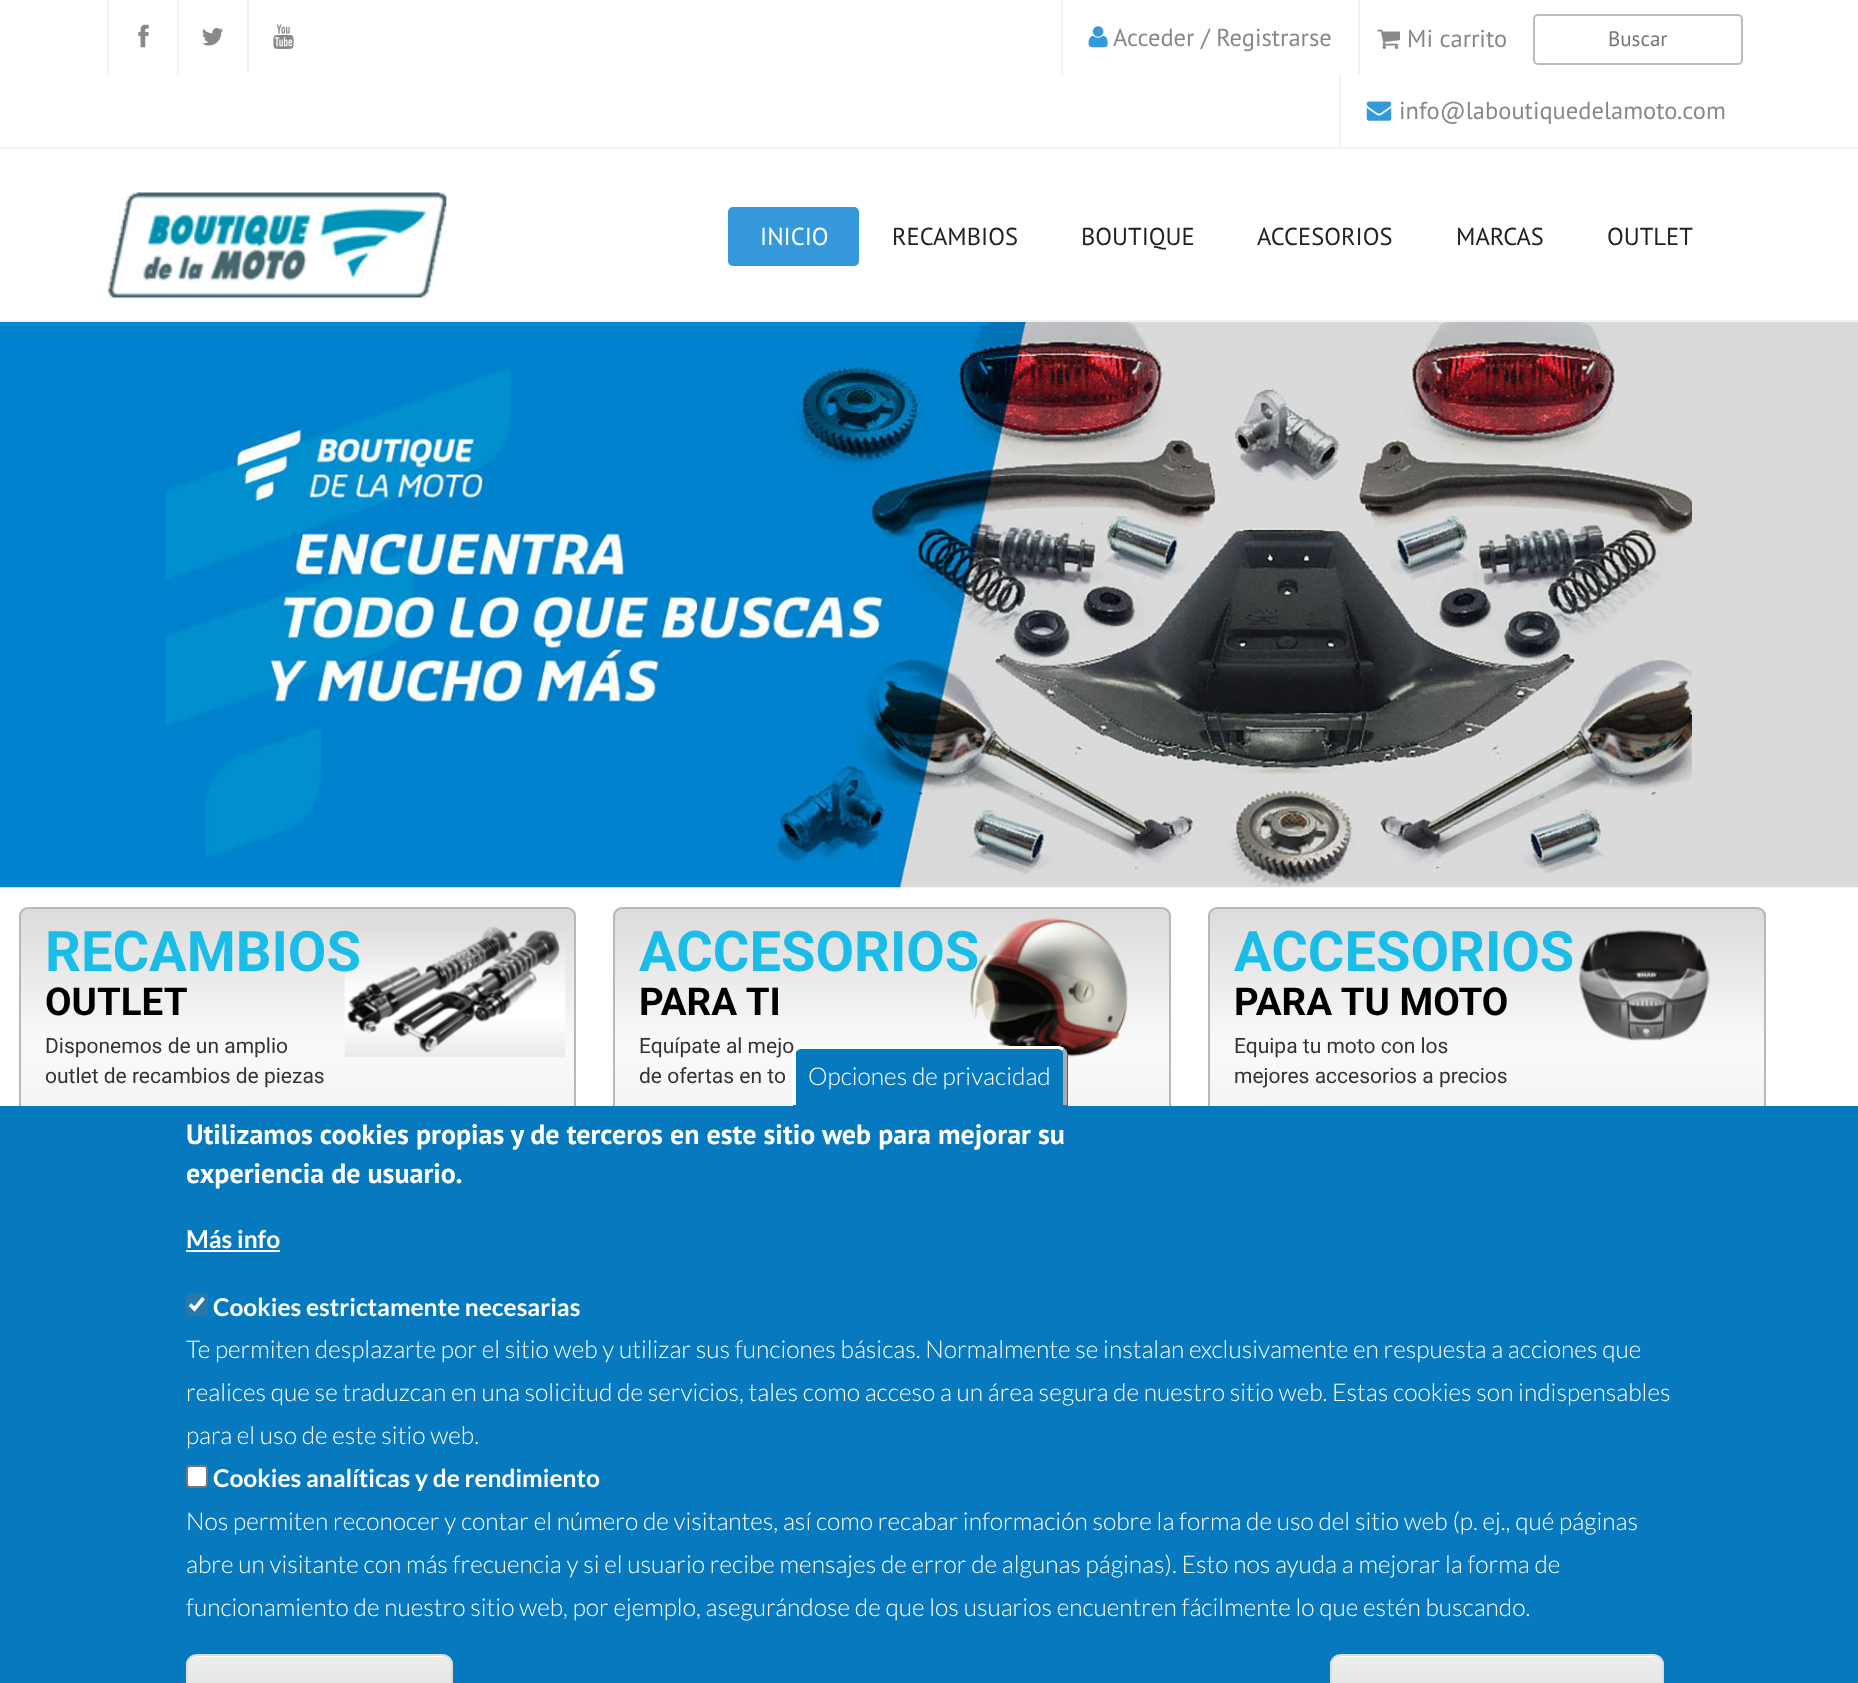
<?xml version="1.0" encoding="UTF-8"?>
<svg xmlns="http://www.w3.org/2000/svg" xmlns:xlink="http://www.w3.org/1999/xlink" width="1858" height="1683">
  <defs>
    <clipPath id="clip1"><rect x="19" y="907" width="557" height="229" rx="9" /></clipPath>
    <linearGradient id="g1" gradientUnits="userSpaceOnUse" x1="298" y1="908" x2="298" y2="1213"><stop offset="0" stop-color="#dbdbdb" /><stop offset="0.45" stop-color="#fafafa" /><stop offset="1" stop-color="#ebebeb" /></linearGradient>
    <clipPath id="clip2"><rect x="613" y="907" width="558" height="229" rx="9" /></clipPath>
    <linearGradient id="g2" gradientUnits="userSpaceOnUse" x1="892" y1="908" x2="892" y2="1213"><stop offset="0" stop-color="#dbdbdb" /><stop offset="0.45" stop-color="#fafafa" /><stop offset="1" stop-color="#ebebeb" /></linearGradient>
    <clipPath id="clip3"><rect x="1208" y="907" width="558" height="229" rx="9" /></clipPath>
    <linearGradient id="g3" gradientUnits="userSpaceOnUse" x1="1487" y1="908" x2="1487" y2="1213"><stop offset="0" stop-color="#dbdbdb" /><stop offset="0.45" stop-color="#fafafa" /><stop offset="1" stop-color="#ebebeb" /></linearGradient>
    <clipPath id="clip4"><rect x="186" y="1654" width="267" height="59" rx="11" /></clipPath>
    <linearGradient id="g4" gradientUnits="userSpaceOnUse" x1="319" y1="1656" x2="319" y2="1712"><stop offset="0.05" stop-color="#ededed" /><stop offset="1" stop-color="#dfdfdf" /></linearGradient>
    <clipPath id="clip5"><rect x="1330" y="1654" width="334" height="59" rx="11" /></clipPath>
    <linearGradient id="g5" gradientUnits="userSpaceOnUse" x1="1497" y1="1656" x2="1497" y2="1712"><stop offset="0.05" stop-color="#ededed" /><stop offset="1" stop-color="#dfdfdf" /></linearGradient>
  </defs>
  <rect width="100%" height="100%" fill="#ffffff" />
  <rect y="147" width="1858" height="2" fill="#f2f2f2" />
  <rect x="107" width="2" height="74" fill="#f2f2f2" />
  <image x="138" y="24" width="11" height="24" xlink:href="image1.png" />
  <rect x="177" width="2" height="74" fill="#f2f2f2" />
  <image x="202" y="28" width="22" height="18" xlink:href="image2.png" />
  <rect x="247" width="2" height="74" fill="#f2f2f2" />
  <image x="273" y="24" width="21" height="25" xlink:href="image3.png" />
  <rect x="1358" width="2" height="74" fill="#f2f2f2" />
  <rect x="1061" width="2" height="74" fill="#f2f2f2" />
  <image x="1088" y="26" width="20" height="22" xlink:href="image4.png" />
  <image x="1377" y="29" width="23" height="20" xlink:href="image5.png" />
  <rect x="1534" y="15" width="208" height="49" rx="4" fill="none" stroke="#bbbbbb" stroke-width="2" />
  <rect x="1339" y="74" width="2" height="73" fill="#f2f2f2" />
  <image x="1366" y="101" width="26" height="20" xlink:href="image6.png" />
  <rect y="320" width="1858" height="2" fill="#f2f2f2" />
  <image x="108" y="192" width="339" height="106" xlink:href="image7.png" />
  <rect x="728" y="207" width="131" height="59" rx="5" fill="#3498db" />
  <image x="0" y="322" width="1858" height="566" xlink:href="image8.png" />
  <g clip-path="url(#clip1)">
    <rect x="19" y="908" width="557" height="198" fill="url(#g1)" />
  </g>
  <rect x="20" y="908" width="555" height="227" rx="8" fill="none" stroke="#b8b8b8" stroke-width="2" />
  <image x="344" y="926" width="222" height="131" xlink:href="image9.png" />
  <g clip-path="url(#clip2)">
    <rect x="613" y="908" width="558" height="198" fill="url(#g2)" />
  </g>
  <rect x="614" y="908" width="556" height="227" rx="8" fill="none" stroke="#b8b8b8" stroke-width="2" />
  <image x="970" y="917" width="158" height="140" xlink:href="image10.png" />
  <g clip-path="url(#clip3)">
    <rect x="1208" y="908" width="558" height="198" fill="url(#g3)" />
  </g>
  <rect x="1209" y="908" width="556" height="227" rx="8" fill="none" stroke="#b8b8b8" stroke-width="2" />
  <image x="1578" y="930" width="133" height="111" xlink:href="image11.png" />
  <rect y="1106" width="1858" height="577" fill="#0779bf" />
  <rect x="186" y="1250" width="94" height="2" fill="#ffffff" />
  <rect x="186" y="1293" width="22" height="23" rx="4" fill="#2878a9" />
  <path d="M 190 1304.5 l 4.5 4.5 l 9 -11" fill="none" stroke="#ffffff" stroke-width="3.6" />
  <rect x="187" y="1466" width="20" height="21" rx="3" fill="#ffffff" stroke="#767676" stroke-width="2" />
  <g clip-path="url(#clip4)">
    <rect x="186" y="1656" width="267" height="27" fill="url(#g4)" />
  </g>
  <path d="M 196 1657 h 247 c 5 0 9 4 9 9 v -1 c 0 -5 -4 -9 -9 -9 h -247 c -5 0 -9 4 -9 9 v 1 c 0 -5 4 -9 9 -9 z" fill="#ffffff" />
  <rect x="187" y="1655" width="265" height="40" rx="10" fill="none" stroke="#dcdcdc" stroke-width="2" />
  <g clip-path="url(#clip5)">
    <rect x="1330" y="1656" width="334" height="27" fill="url(#g5)" />
  </g>
  <path d="M 1340 1657 h 314 c 5 0 8 4 8 9 v 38 c 0 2 0 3 -1 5 c 1 -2 2 -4 2 -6 v -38 c 0 -5 -4 -9 -9 -9 h -313 c -5 0 -9 4 -9 9 v 1 c 0 -5 4 -9 8 -9 z" fill="#ffffff" />
  <rect x="1331" y="1655" width="332" height="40" rx="10" fill="none" stroke="#dcdcdc" stroke-width="2" />
  <text x="1113" y="46" style="font-family: PT Sans; font-size: 24.5px; fill: #888888">Acceder / Registrarse</text>
  <text x="1407" y="47" style="font-family: PT Sans; font-size: 24.5px; fill: #888888">Mi carrito</text>
  <text x="1608" y="46" style="font-family: PT Sans; font-size: 21px; fill: #757575">Buscar</text>
  <text x="1399" y="119" style="font-family: PT Sans; font-size: 24.5px; fill: #888888">info@laboutiquedelamoto.com</text>
  <text x="760" y="245" style="font-family: PT Sans; font-size: 24.5px; fill: #ffffff">INICIO</text>
  <text x="892" y="245" style="font-family: PT Sans; font-size: 24.5px; fill: #222222">RECAMBIOS</text>
  <text x="1081" y="245" style="font-family: PT Sans; font-size: 24.5px; fill: #222222">BOUTIQUE</text>
  <text x="1257" y="245" style="font-family: PT Sans; font-size: 24.5px; fill: #222222">ACCESORIOS</text>
  <text x="1456" y="245" style="font-family: PT Sans; font-size: 24.5px; fill: #222222">MARCAS</text>
  <text x="1607" y="245" style="font-family: PT Sans; font-size: 24.5px; fill: #222222">OUTLET</text>
  <text x="45" y="971" style="font-family: Roboto; font-size: 56px; font-weight: bold; fill: #19bde8">RECAMBIOS</text>
  <text x="45" y="1015" style="font-family: Roboto; font-size: 38.5px; font-weight: bold; fill: #000000">OUTLET</text>
  <text x="45" y="1053" style="font-family: Roboto; font-size: 21px; fill: #333333">Disponemos de un amplio</text>
  <text x="45" y="1083" style="font-family: Roboto; font-size: 21px; fill: #333333">outlet de recambios de piezas</text>
  <text x="639" y="971" style="font-family: Roboto; font-size: 56px; font-weight: bold; fill: #19bde8">ACCESORIOS</text>
  <text x="639" y="1015" style="font-family: Roboto; font-size: 38.5px; font-weight: bold; fill: #000000">PARA TI</text>
  <text x="639" y="1053" style="font-family: Roboto; font-size: 21px; fill: #333333">Equípate al mejo</text>
  <text x="639" y="1083" style="font-family: Roboto; font-size: 21px; fill: #333333">de ofertas en to</text>
  <text x="1234" y="971" style="font-family: Roboto; font-size: 56px; font-weight: bold; fill: #19bde8">ACCESORIOS</text>
  <text x="1234" y="1015" style="font-family: Roboto; font-size: 38.5px; font-weight: bold; fill: #000000">PARA TU MOTO</text>
  <text x="1234" y="1053" style="font-family: Roboto; font-size: 21px; fill: #333333">Equipa tu moto con los</text>
  <text x="1234" y="1083" style="font-family: Roboto; font-size: 21px; fill: #333333">mejores accesorios a precios</text>
  <path d="M 802 1047 h 257 c 5 0 9 4 9 9 v 50 h -275 v -50 c 0 -5 4 -9 9 -9 z" fill="#0779bf" />
  <path d="M 801 1046 h 257 c 2 0 5 1 6 2 l -2 3 c -1 -1 -2 -2 -4 -2 h -257 c -2 0 -3 1 -4 2 l -2 -3 c 1 -1 4 -2 6 -2 z" fill="#ffffff" />
  <path d="M 1064 1048 c 2 2 3 3 3 5 v 52 h -4 v -51 c 0 -1 0 -2 -1 -3 z" fill="#aaaaaa" />
  <path d="M 795 1048 l 2 3 c -1 0 -1 2 -1 3 v 51 h -4 v -52 c 1 -2 1 -4 3 -5 z" fill="#ffffff" />
  <text x="808" y="1085" style="font-family: Lato; font-size: 24.5px; font-weight: 300; fill: #ffffff">Opciones de privacidad</text>
  <text x="186" y="1144" style="font-family: PT Sans; font-size: 28px; font-weight: bold; fill: #ffffff">Utilizamos cookies propias y de terceros en este sitio web para mejorar su</text>
  <text x="186" y="1183" style="font-family: PT Sans; font-size: 28px; font-weight: bold; fill: #ffffff">experiencia de usuario.</text>
  <text x="186" y="1248" style="font-family: Lato; font-size: 24.5px; font-weight: bold; fill: #ffffff">Más info</text>
  <text x="213" y="1316" style="font-family: Lato; font-size: 24.5px; font-weight: bold; fill: #ffffff">Cookies estrictamente necesarias</text>
  <text x="186" y="1358" style="font-family: Lato; font-size: 24.5px; font-weight: 300; fill: #ffffff">Te permiten desplazarte por el sitio web y utilizar sus funciones básicas. Normalmente se instalan exclusivamente en respuesta a acciones que</text>
  <text x="186" y="1401" style="font-family: Lato; font-size: 24.5px; font-weight: 300; fill: #ffffff">realices que se traduzcan en una solicitud de servicios, tales como acceso a un área segura de nuestro sitio web. Estas cookies son indispensables</text>
  <text x="186" y="1444" style="font-family: Lato; font-size: 24.5px; font-weight: 300; fill: #ffffff">para el uso de este sitio web.</text>
  <text x="213" y="1487" style="font-family: Lato; font-size: 24.5px; font-weight: bold; fill: #ffffff">Cookies analíticas y de rendimiento</text>
  <text x="186" y="1530" style="font-family: Lato; font-size: 24.5px; font-weight: 300; fill: #ffffff">Nos permiten reconocer y contar el número de visitantes, así como recabar información sobre la forma de uso del sitio web (p. ej., qué páginas</text>
  <text x="186" y="1573" style="font-family: Lato; font-size: 24.5px; font-weight: 300; fill: #ffffff">abre un visitante con más frecuencia y si el usuario recibe mensajes de error de algunas páginas). Esto nos ayuda a mejorar la forma de</text>
  <text x="186" y="1616" style="font-family: Lato; font-size: 24.5px; font-weight: 300; fill: #ffffff">funcionamiento de nuestro sitio web, por ejemplo, asegurándose de que los usuarios encuentren fácilmente lo que estén buscando.</text>
</svg>
